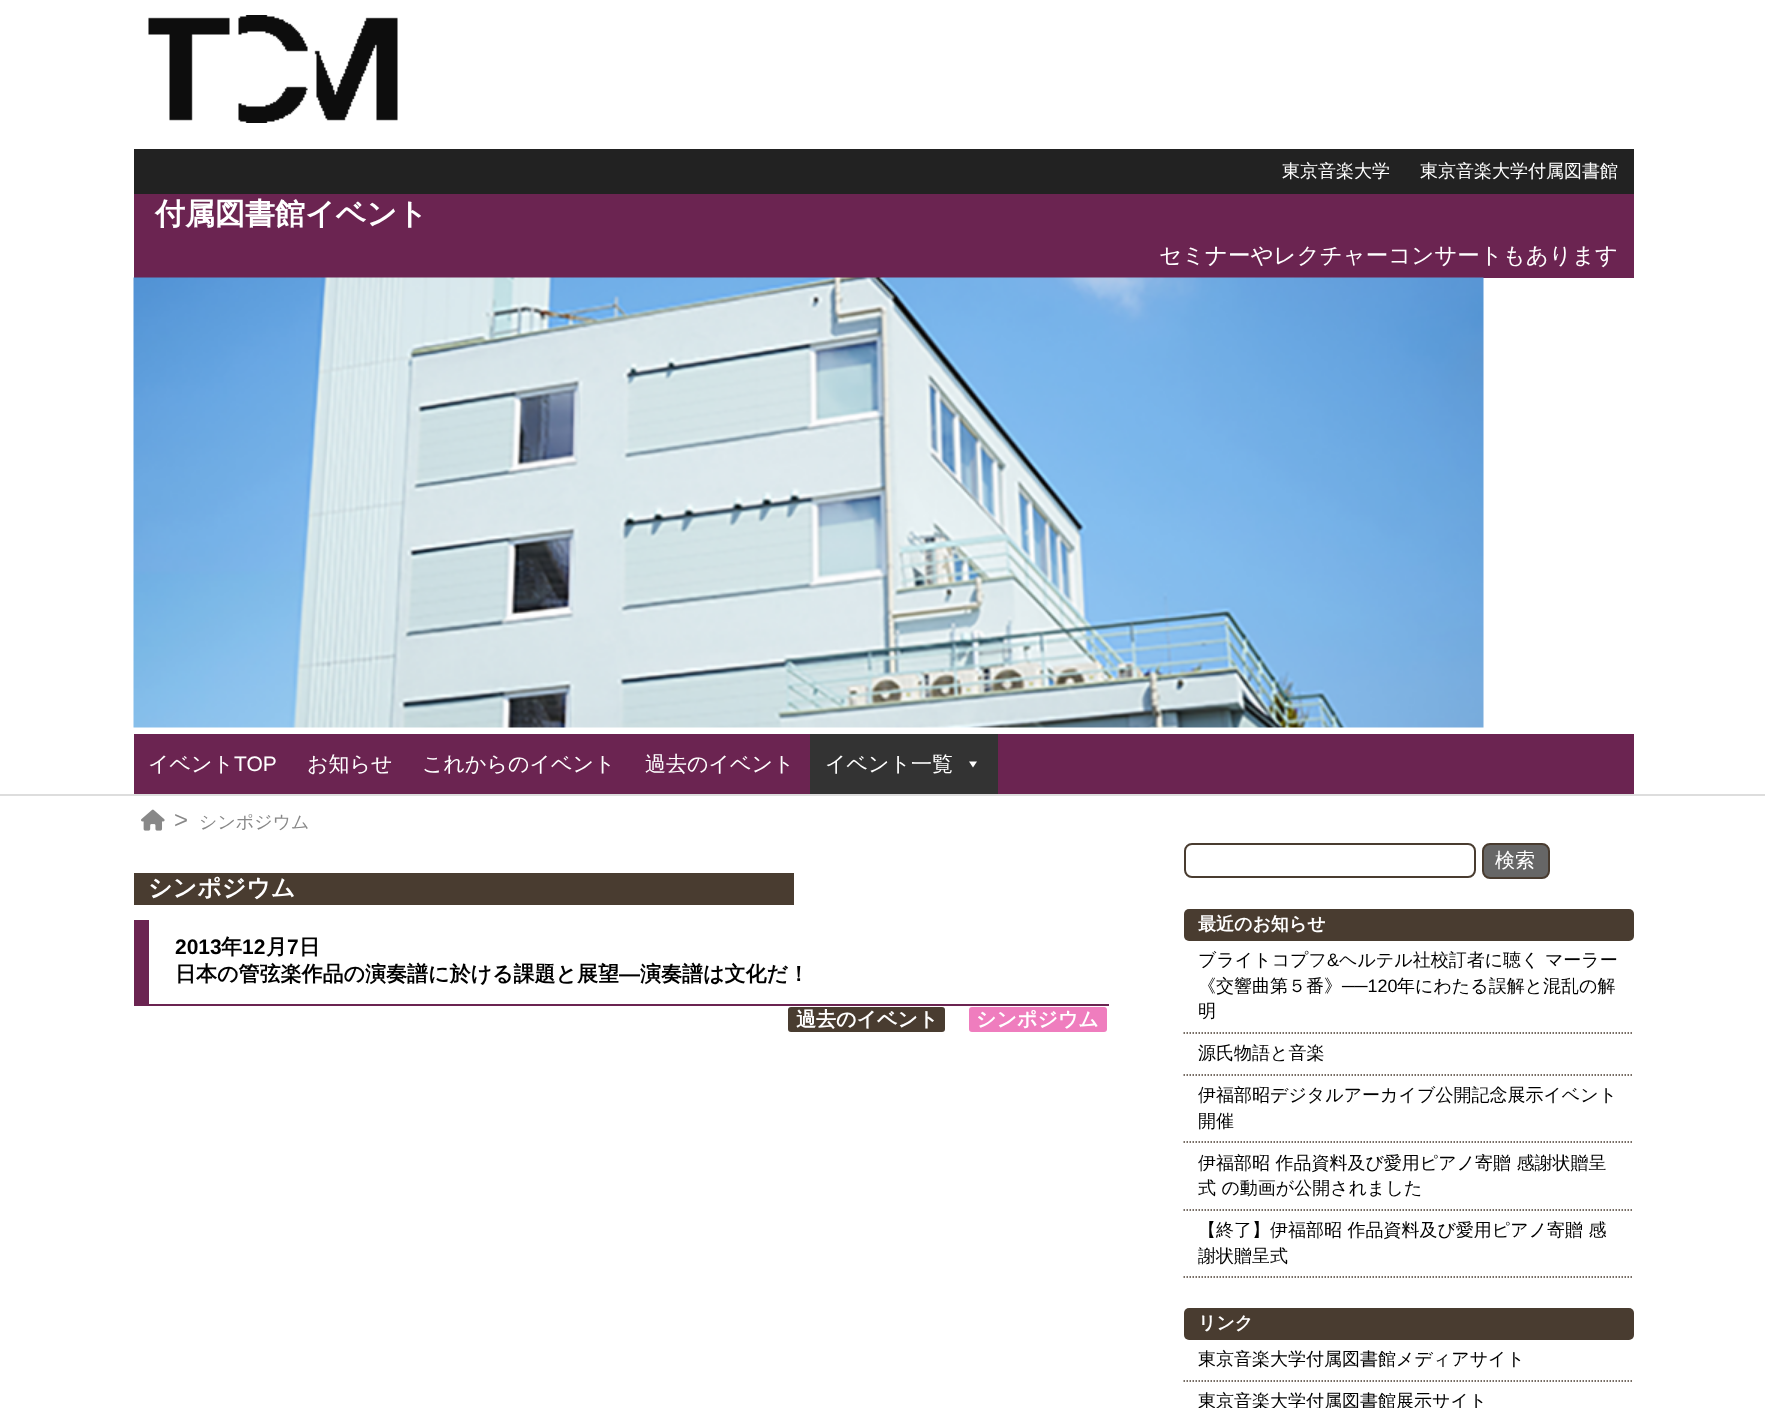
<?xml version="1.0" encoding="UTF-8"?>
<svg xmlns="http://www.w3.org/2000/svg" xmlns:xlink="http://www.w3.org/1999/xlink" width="1765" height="1408">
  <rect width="100%" height="100%" fill="#ffffff" />
  <rect y="794" width="1765" height="2" fill="#dddddd" />
  <image x="148" y="15" width="250" height="108" xlink:href="image1.png" />
  <rect x="134" y="149" width="1500" height="45" fill="#222222" />
  <rect x="134" y="194" width="1500" height="84" fill="#6b2451" />
  <image x="133" y="277" width="1351" height="451" xlink:href="image2.png" />
  <rect x="134" y="734" width="1500" height="60" fill="#6b2451" />
  <rect x="810" y="734" width="188" height="60" fill="#333333" />
  <path d="M 977 761.5 l -4 6 l -4 -6 z" fill="#ffffff" />
  <image x="141" y="809" width="24" height="22" xlink:href="image3.png" />
  <rect x="134" y="873" width="660" height="32" fill="#493c30" />
  <rect x="134" y="1004" width="975" height="2" fill="#6b2451" />
  <rect x="134" y="920" width="15" height="84" fill="#6b2451" />
  <rect x="788" y="1007" width="157" height="25" rx="3" fill="#493c30" />
  <rect x="969" y="1007" width="138" height="25" rx="3" fill="#ef7dbe" />
  <rect x="1185" y="844" width="290" height="33" rx="7" fill="none" stroke="#493c30" stroke-width="2" />
  <rect x="1483" y="844" width="66" height="34" rx="7" fill="#666666" stroke="#493c30" stroke-width="2" />
  <rect x="1184" y="909" width="450" height="32" rx="5" fill="#493c30" />
  <path d="M 1183.5 1033 h 450" fill="none" stroke="#493c30" stroke-width="1.5" stroke-dasharray="1.5 1.5" />
  <path d="M 1183.5 1075 h 450" fill="none" stroke="#493c30" stroke-width="1.5" stroke-dasharray="1.5 1.5" />
  <path d="M 1183.5 1142 h 450" fill="none" stroke="#493c30" stroke-width="1.5" stroke-dasharray="1.5 1.5" />
  <path d="M 1183.5 1210 h 450" fill="none" stroke="#493c30" stroke-width="1.5" stroke-dasharray="1.5 1.5" />
  <path d="M 1183.5 1277 h 450" fill="none" stroke="#493c30" stroke-width="1.5" stroke-dasharray="1.5 1.5" />
  <rect x="1184" y="1308" width="450" height="32" rx="5" fill="#493c30" />
  <path d="M 1183.5 1381 h 450" fill="none" stroke="#493c30" stroke-width="1.5" stroke-dasharray="1.5 1.5" />
  <text x="1282" y="177" style="font-family: WenQuanYi Zen Hei; font-size: 18px; font-weight: 500; fill: #ffffff">東京音楽大学</text>
  <text x="1420" y="177" style="font-family: WenQuanYi Zen Hei; font-size: 18px; font-weight: 500; fill: #ffffff">東京音楽大学付属図書館</text>
  <text x="155" y="224" style="font-family: WenQuanYi Zen Hei; font-size: 30px; font-weight: bold; fill: #ffffff">付属図書館イベント</text>
  <text x="1159" y="263" style="font-family: WenQuanYi Zen Hei; font-size: 22.5px; font-weight: 500; fill: #ffffff">セミナーやレクチャーコンサートもあります</text>
  <text x="148" y="771" style="font-family: WenQuanYi Zen Hei; font-size: 21px; font-weight: 500; fill: #ffffff">イベント</text>
  <text x="234" y="771" style="font-family: Liberation Sans; font-size: 21px; fill: #ffffff">TOP</text>
  <text x="307" y="771" style="font-family: WenQuanYi Zen Hei; font-size: 21px; font-weight: 500; fill: #ffffff">お知らせ</text>
  <text x="422" y="771" style="font-family: WenQuanYi Zen Hei; font-size: 21px; font-weight: 500; fill: #ffffff">これからのイベント</text>
  <text x="645" y="771" style="font-family: WenQuanYi Zen Hei; font-size: 21px; font-weight: 500; fill: #ffffff">過去のイベント</text>
  <text x="825" y="771" style="font-family: WenQuanYi Zen Hei; font-size: 21px; font-weight: 500; fill: #ffffff">イベント一覧</text>
  <text x="174" y="828" style="font-family: Liberation Sans; font-size: 24px; fill: #888888">&gt;</text>
  <text x="199" y="828" style="font-family: WenQuanYi Zen Hei; font-size: 18px; font-weight: 500; fill: #888888">シンポジウム</text>
  <text x="148" y="896" style="font-family: WenQuanYi Zen Hei; font-size: 24px; font-weight: bold; fill: #ffffff">シンポジウム</text>
  <text x="175" y="954" style="font-family: Liberation Sans; font-size: 21px; font-weight: bold; fill: #000000">2013</text>
  <text x="221" y="954" style="font-family: WenQuanYi Zen Hei; font-size: 21px; font-weight: bold; fill: #000000">年</text>
  <text x="242" y="954" style="font-family: Liberation Sans; font-size: 21px; font-weight: bold; fill: #000000">12</text>
  <text x="266" y="954" style="font-family: WenQuanYi Zen Hei; font-size: 21px; font-weight: bold; fill: #000000">月</text>
  <text x="287" y="954" style="font-family: Liberation Sans; font-size: 21px; font-weight: bold; fill: #000000">7</text>
  <text x="299" y="954" style="font-family: WenQuanYi Zen Hei; font-size: 21px; font-weight: bold; fill: #000000">日</text>
  <text x="175" y="981" style="font-family: WenQuanYi Zen Hei; font-size: 21px; font-weight: bold; fill: #000000">日本の管弦楽作品の演奏譜に於ける課題と展望</text>
  <text x="619" y="981" style="font-family: Liberation Sans; font-size: 21px; font-weight: bold; fill: #000000">―</text>
  <text x="640" y="981" style="font-family: WenQuanYi Zen Hei; font-size: 21px; font-weight: bold; fill: #000000">演奏譜は文化だ！</text>
  <text x="796" y="1026" style="font-family: WenQuanYi Zen Hei; font-size: 20px; font-weight: bold; fill: #ffffff">過去のイベント</text>
  <text x="976" y="1026" style="font-family: WenQuanYi Zen Hei; font-size: 20px; font-weight: bold; fill: #ffffff">シンポジウム</text>
  <text x="1495" y="867" style="font-family: WenQuanYi Zen Hei; font-size: 20px; font-weight: 500; fill: #ffffff">検索</text>
  <text x="1198" y="930" style="font-family: WenQuanYi Zen Hei; font-size: 18px; font-weight: bold; fill: #ffffff">最近のお知らせ</text>
  <text x="1198" y="966" style="font-family: WenQuanYi Zen Hei; font-size: 18px; font-weight: 500; fill: #000000">ブライトコプフ</text>
  <text x="1327" y="966" style="font-family: Liberation Sans; font-size: 18px; fill: #000000">&amp;</text>
  <text x="1339" y="966" style="font-family: WenQuanYi Zen Hei; font-size: 18px; font-weight: 500; fill: #000000">ヘルテル社校訂者に聴く マーラー</text>
  <text x="1198" y="992" style="font-family: WenQuanYi Zen Hei; font-size: 18px; font-weight: 500; fill: #000000">《交響曲第５番》</text>
  <text x="1342" y="992" style="font-family: Liberation Sans; font-size: 18px; fill: #000000">──120</text>
  <text x="1397" y="992" style="font-family: WenQuanYi Zen Hei; font-size: 18px; font-weight: 500; fill: #000000">年にわたる誤解と混乱の解</text>
  <text x="1198" y="1017" style="font-family: WenQuanYi Zen Hei; font-size: 18px; font-weight: 500; fill: #000000">明</text>
  <text x="1198" y="1059" style="font-family: WenQuanYi Zen Hei; font-size: 18px; font-weight: 500; fill: #000000">源氏物語と音楽</text>
  <text x="1198" y="1101" style="font-family: WenQuanYi Zen Hei; font-size: 18px; font-weight: 500; fill: #000000">伊福部昭デジタルアーカイブ公開記念展示イベント</text>
  <text x="1198" y="1127" style="font-family: WenQuanYi Zen Hei; font-size: 18px; font-weight: 500; fill: #000000">開催</text>
  <text x="1198" y="1169" style="font-family: WenQuanYi Zen Hei; font-size: 18px; font-weight: 500; fill: #000000">伊福部昭 作品資料及び愛用ピアノ寄贈 感謝状贈呈</text>
  <text x="1198" y="1194" style="font-family: WenQuanYi Zen Hei; font-size: 18px; font-weight: 500; fill: #000000">式 の動画が公開されました</text>
  <text x="1198" y="1236" style="font-family: WenQuanYi Zen Hei; font-size: 18px; font-weight: 500; fill: #000000">【終了】伊福部昭 作品資料及び愛用ピアノ寄贈 感</text>
  <text x="1198" y="1262" style="font-family: WenQuanYi Zen Hei; font-size: 18px; font-weight: 500; fill: #000000">謝状贈呈式</text>
  <text x="1198" y="1329" style="font-family: WenQuanYi Zen Hei; font-size: 18px; font-weight: bold; fill: #ffffff">リンク</text>
  <text x="1198" y="1365" style="font-family: WenQuanYi Zen Hei; font-size: 18px; font-weight: 500; fill: #000000">東京音楽大学付属図書館メディアサイト</text>
  <text x="1198" y="1407" style="font-family: WenQuanYi Zen Hei; font-size: 18px; font-weight: 500; fill: #000000">東京音楽大学付属図書館展示サイト</text>
</svg>
